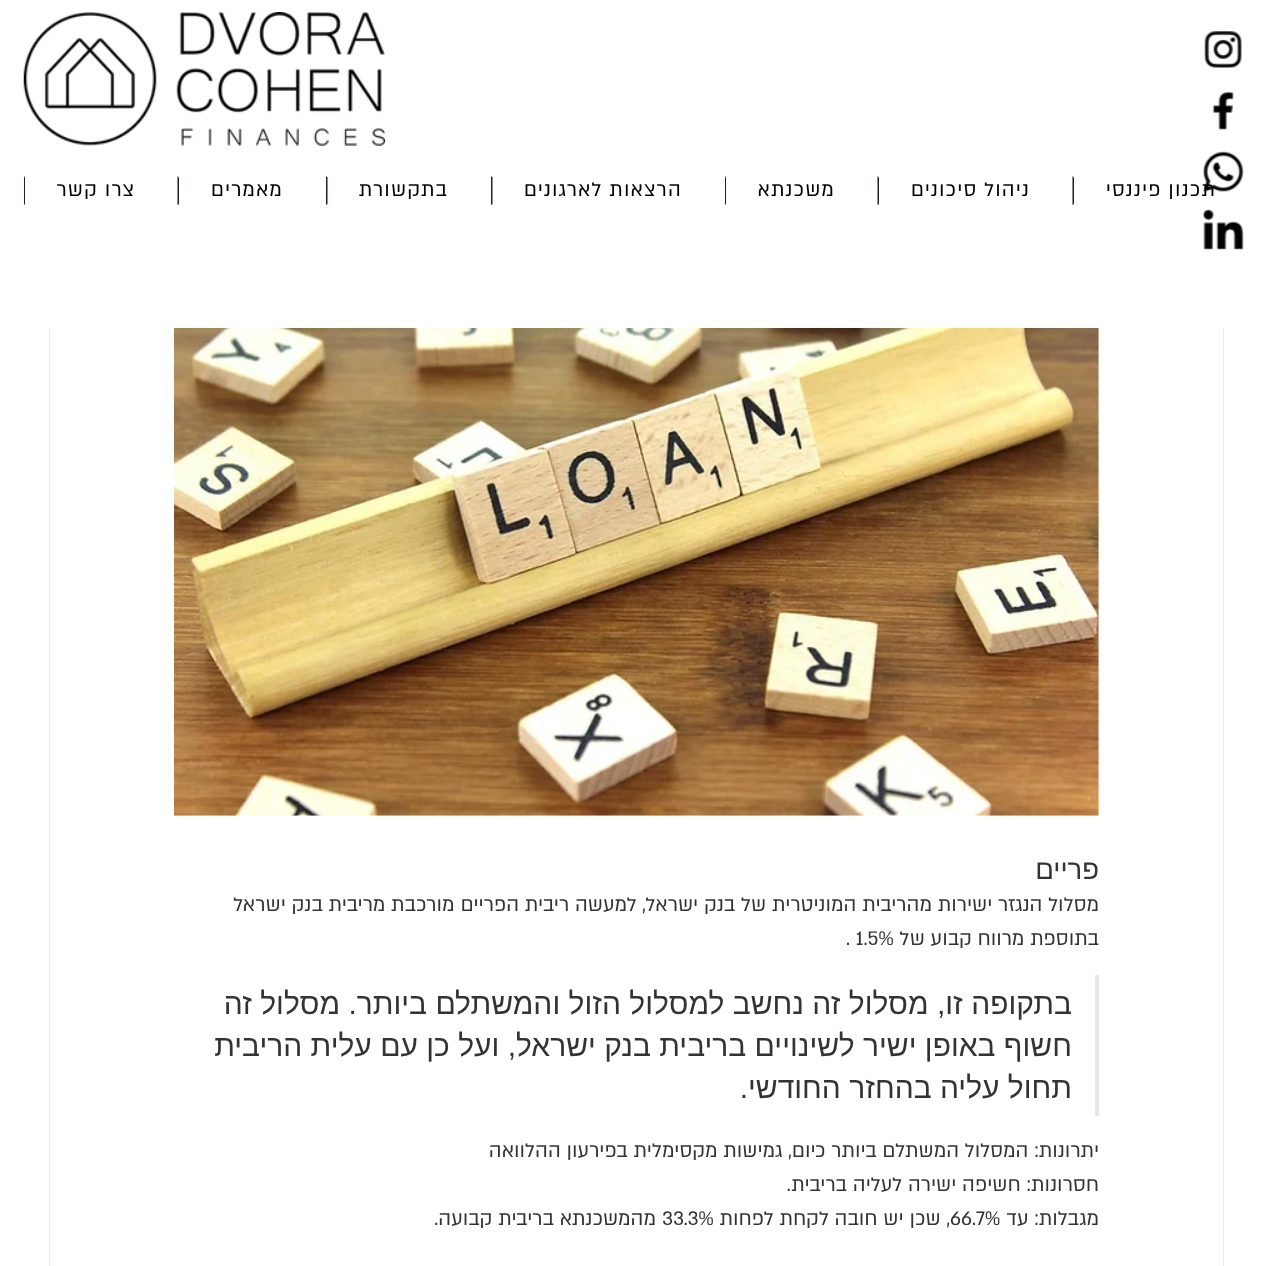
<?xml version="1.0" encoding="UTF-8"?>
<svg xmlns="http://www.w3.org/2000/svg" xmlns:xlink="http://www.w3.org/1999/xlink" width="1272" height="1266">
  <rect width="100%" height="100%" fill="#ffffff" />
  <rect x="49.5" y="-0.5" width="1174" height="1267" fill="none" stroke="#eeecec" />
  <rect x="49" width="1175" height="328" fill="#ffffff" />
  <image x="1204" y="31" width="38" height="37" xlink:href="image1.png" />
  <image x="1212" y="92" width="22" height="39" xlink:href="image2.png" />
  <image x="1202" y="209" width="42" height="41" xlink:href="image4.png" />
  <image x="23" y="12" width="362" height="134" xlink:href="image5.png" />
  <path d="M 1072.5 205 v -29 l 1.5 1.5 v 26.5 z" fill="#15291b" />
  <path d="M 877.5 205 v -29 l 1.5 1.5 v 26.5 z" fill="#15291b" />
  <path d="M 725 205 v -29 l 1 1.5 v 26.5 z" fill="#15291b" />
  <path d="M 491 205 v -29 l 1.5 1.5 v 26.5 z" fill="#15291b" />
  <path d="M 326 205 v -29 l 1.5 1.5 v 26.5 z" fill="#15291b" />
  <path d="M 177.5 205 v -29 l 1.5 1.5 v 26.5 z" fill="#15291b" />
  <path d="M 24 205 v -29 l 1 1.5 v 26.5 z" fill="#15291b" />
  <image x="173" y="328" width="926" height="488" xlink:href="image6.png" />
  <rect x="1095" y="975" width="4" height="141" fill="#e8e6e6" />
  <text x="1216" y="196" style="font-family: 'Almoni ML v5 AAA'; font-size: 22.5px; letter-spacing: 1.1px; direction: rtl; fill: #000000">תכנון פיננסי</text>
  <image x="1203" y="151" width="41" height="41" xlink:href="image3.png" />
  <text x="1030" y="196" style="font-family: 'Almoni ML v5 AAA'; font-size: 22.5px; letter-spacing: 1.1px; direction: rtl; fill: #000000">ניהול סיכונים</text>
  <text x="835" y="196" style="font-family: 'Almoni ML v5 AAA'; font-size: 22.5px; letter-spacing: 1.1px; direction: rtl; fill: #000000">משכנתא</text>
  <text x="682" y="196" style="font-family: 'Almoni ML v5 AAA'; font-size: 22.5px; letter-spacing: 1.1px; direction: rtl; fill: #000000">הרצאות לארגונים</text>
  <text x="448" y="196" style="font-family: 'Almoni ML v5 AAA'; font-size: 22.5px; letter-spacing: 1.1px; direction: rtl; fill: #000000">בתקשורת</text>
  <text x="283" y="196" style="font-family: 'Almoni ML v5 AAA'; font-size: 22.5px; letter-spacing: 1.1px; direction: rtl; fill: #000000">מאמרים</text>
  <text x="135" y="196" style="font-family: 'Almoni ML v5 AAA'; font-size: 22.5px; letter-spacing: 1.1px; direction: rtl; fill: #000000">צרו קשר</text>
  <text x="1099" y="879" style="font-family: Liberation Sans; font-size: 27.5px; direction: rtl; fill: #333333">פריים</text>
  <text x="1099" y="911" style="font-family: 'Almoni ML v5 AAA'; font-size: 22.5px; direction: rtl; fill: #333333">מסלול הנגזר ישירות מהריבית המוניטרית של בנק ישראל, למעשה ריבית הפריים מורכבת מריבית בנק ישראל</text>
  <text x="1099" y="945" style="font-family: 'Almoni ML v5 AAA'; font-size: 22.5px; direction: rtl; fill: #333333">בתוספת מרווח קבוע של</text>
  <text x="846" y="945" style="font-family: 'Almoni ML v5 AAA'; font-size: 22.5px; fill: #333333">. 1.5%</text>
  <text x="1072" y="1014" style="font-family: Liberation Sans; font-size: 30px; direction: rtl; fill: #333333">בתקופה זו, מסלול זה נחשב למסלול הזול והמשתלם ביותר. מסלול זה</text>
  <text x="1072" y="1056" style="font-family: Liberation Sans; font-size: 30px; direction: rtl; fill: #333333">חשוף באופן ישיר לשינויים בריבית בנק ישראל, ועל כן עם עלית הריבית</text>
  <text x="1072" y="1098" style="font-family: Liberation Sans; font-size: 30px; direction: rtl; fill: #333333">תחול עליה בהחזר החודשי.</text>
  <text x="1099" y="1157" style="font-family: 'Almoni ML v5 AAA'; font-size: 22.5px; direction: rtl; fill: #333333">יתרונות: המסלול המשתלם ביותר כיום, גמישות מקסימלית בפירעון ההלוואה</text>
  <text x="1099" y="1191" style="font-family: 'Almoni ML v5 AAA'; font-size: 22.5px; direction: rtl; fill: #333333">חסרונות: חשיפה ישירה לעליה בריבית.</text>
  <text x="1099" y="1225" style="font-family: 'Almoni ML v5 AAA'; font-size: 22.5px; direction: rtl; fill: #333333">מגבלות: עד</text>
  <text x="950" y="1225" style="font-family: 'Almoni ML v5 AAA'; font-size: 22.5px; fill: #333333">66.7%</text>
  <text x="950" y="1225" style="font-family: 'Almoni ML v5 AAA'; font-size: 22.5px; direction: rtl; fill: #333333">, שכן יש חובה לקחת לפחות</text>
  <text x="662" y="1225" style="font-family: 'Almoni ML v5 AAA'; font-size: 22.5px; fill: #333333">33.3%</text>
  <text x="656" y="1225" style="font-family: 'Almoni ML v5 AAA'; font-size: 22.5px; direction: rtl; fill: #333333">מהמשכנתא בריבית קבועה.</text>
</svg>
